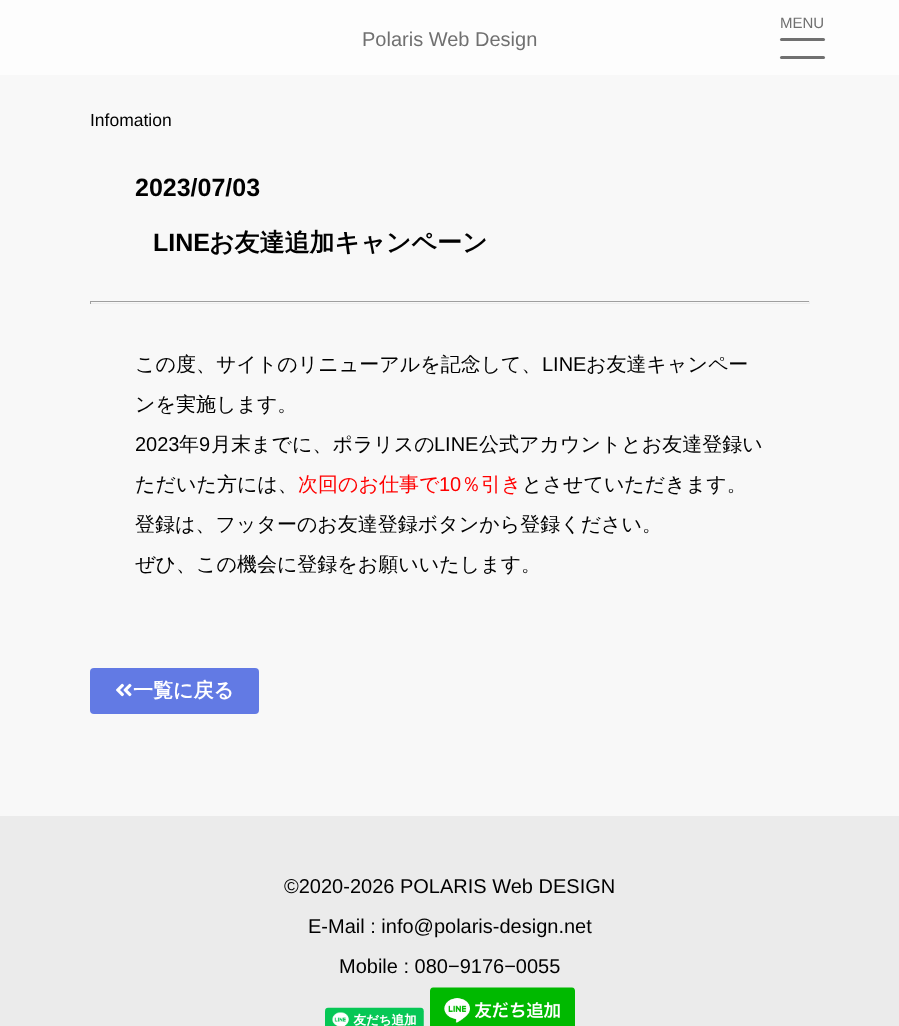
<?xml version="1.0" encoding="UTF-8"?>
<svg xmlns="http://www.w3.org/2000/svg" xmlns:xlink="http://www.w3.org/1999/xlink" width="899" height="1026">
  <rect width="100%" height="100%" fill="#f8f8f8" />
  <rect width="899" height="75" fill="#fdfdfd" />
  <rect x="780" y="38" width="45" height="3" rx="1.5" fill="#707070" />
  <rect x="780" y="56" width="45" height="3" rx="1.5" fill="#707070" />
  <rect x="90" y="301" width="720" height="1" fill="#9f9f9f" />
  <rect x="809" y="301" width="1" height="3" fill="#eeeeee" />
  <rect x="90" y="303" width="720" height="1" fill="#eeeeee" />
  <rect x="90" y="301" width="1" height="3" fill="#9f9f9f" />
  <rect x="90" y="668" width="169" height="46" rx="4" fill="#627ae4" />
  <image x="116" y="683" width="16" height="14" xlink:href="image1.png" />
  <rect y="816" width="899" height="210" fill="#ebebeb" />
  <image x="325" y="1007" width="99" height="19" xlink:href="image2.png" />
  <image x="430" y="987" width="145" height="39" xlink:href="image3.png" />
  <text x="780" y="28" style="font-family: Liberation Sans; font-size: 15px; fill: #707070">MENU</text>
  <text x="362" y="46" style="font-family: Liberation Sans; font-size: 20px; fill: #707070">Polaris Web Design</text>
  <text x="90" y="126" style="font-family: Liberation Sans; font-size: 17.5px; fill: #000000">Infomation</text>
  <text x="135" y="196" style="font-family: Liberation Sans; font-size: 25px; font-weight: bold; fill: #000000">2023/07/03</text>
  <text x="153" y="251" style="font-family: Liberation Sans; font-size: 25px; font-weight: bold; fill: #000000">LINE</text>
  <text x="209" y="251" style="font-family: WenQuanYi Zen Hei; font-size: 25px; font-weight: bold; fill: #000000">お友達追加キャンペーン</text>
  <text x="135" y="371" style="font-family: WenQuanYi Zen Hei; font-size: 20px; font-weight: 500; fill: #000000">この度、サイトのリニューアルを記念して、</text>
  <text x="542" y="371" style="font-family: Liberation Sans; font-size: 20px; fill: #000000">LINE</text>
  <text x="586" y="371" style="font-family: WenQuanYi Zen Hei; font-size: 20px; font-weight: 500; fill: #000000">お友達キャンペー</text>
  <text x="135" y="411" style="font-family: WenQuanYi Zen Hei; font-size: 20px; font-weight: 500; fill: #000000">ンを実施します。</text>
  <text x="135" y="451" style="font-family: Liberation Sans; font-size: 20px; fill: #000000">2023</text>
  <text x="179" y="451" style="font-family: WenQuanYi Zen Hei; font-size: 20px; font-weight: 500; fill: #000000">年</text>
  <text x="199" y="451" style="font-family: Liberation Sans; font-size: 20px; fill: #000000">9</text>
  <text x="211" y="451" style="font-family: WenQuanYi Zen Hei; font-size: 20px; font-weight: 500; fill: #000000">月末までに、ポラリスの</text>
  <text x="434" y="451" style="font-family: Liberation Sans; font-size: 20px; fill: #000000">LINE</text>
  <text x="479" y="451" style="font-family: WenQuanYi Zen Hei; font-size: 20px; font-weight: 500; fill: #000000">公式アカウントとお友達登録い</text>
  <text x="135" y="491" style="font-family: WenQuanYi Zen Hei; font-size: 20px; font-weight: 500; fill: #000000">ただいた方には、</text>
  <text x="298" y="491" style="font-family: WenQuanYi Zen Hei; font-size: 20px; font-weight: 500; fill: #ff0000">次回のお仕事で</text>
  <text x="439" y="491" style="font-family: Liberation Sans; font-size: 20px; fill: #ff0000">10</text>
  <text x="461" y="491" style="font-family: WenQuanYi Zen Hei; font-size: 20px; font-weight: 500; fill: #ff0000">％引き</text>
  <text x="522" y="491" style="font-family: WenQuanYi Zen Hei; font-size: 20px; font-weight: 500; fill: #000000">とさせていただきます。</text>
  <text x="135" y="531" style="font-family: WenQuanYi Zen Hei; font-size: 20px; font-weight: 500; fill: #000000">登録は、フッターのお友達登録ボタンから登録ください。</text>
  <text x="135" y="571" style="font-family: WenQuanYi Zen Hei; font-size: 20px; font-weight: 500; fill: #000000">ぜひ、この機会に登録をお願いいたします。</text>
  <text x="133" y="697" style="font-family: WenQuanYi Zen Hei; font-size: 20px; font-weight: bold; fill: #ffffff">一覧に戻る</text>
  <text x="284" y="893" style="font-family: Liberation Sans; font-size: 20px; fill: #000000">©︎2020-2026 POLARIS Web DESIGN</text>
  <text x="308" y="933" style="font-family: Liberation Sans; font-size: 20px; fill: #000000">E-Mail : info@polaris-design.net</text>
  <text x="339" y="973" style="font-family: Liberation Sans; font-size: 20px; fill: #000000">Mobile : 080−9176−0055</text>
</svg>
